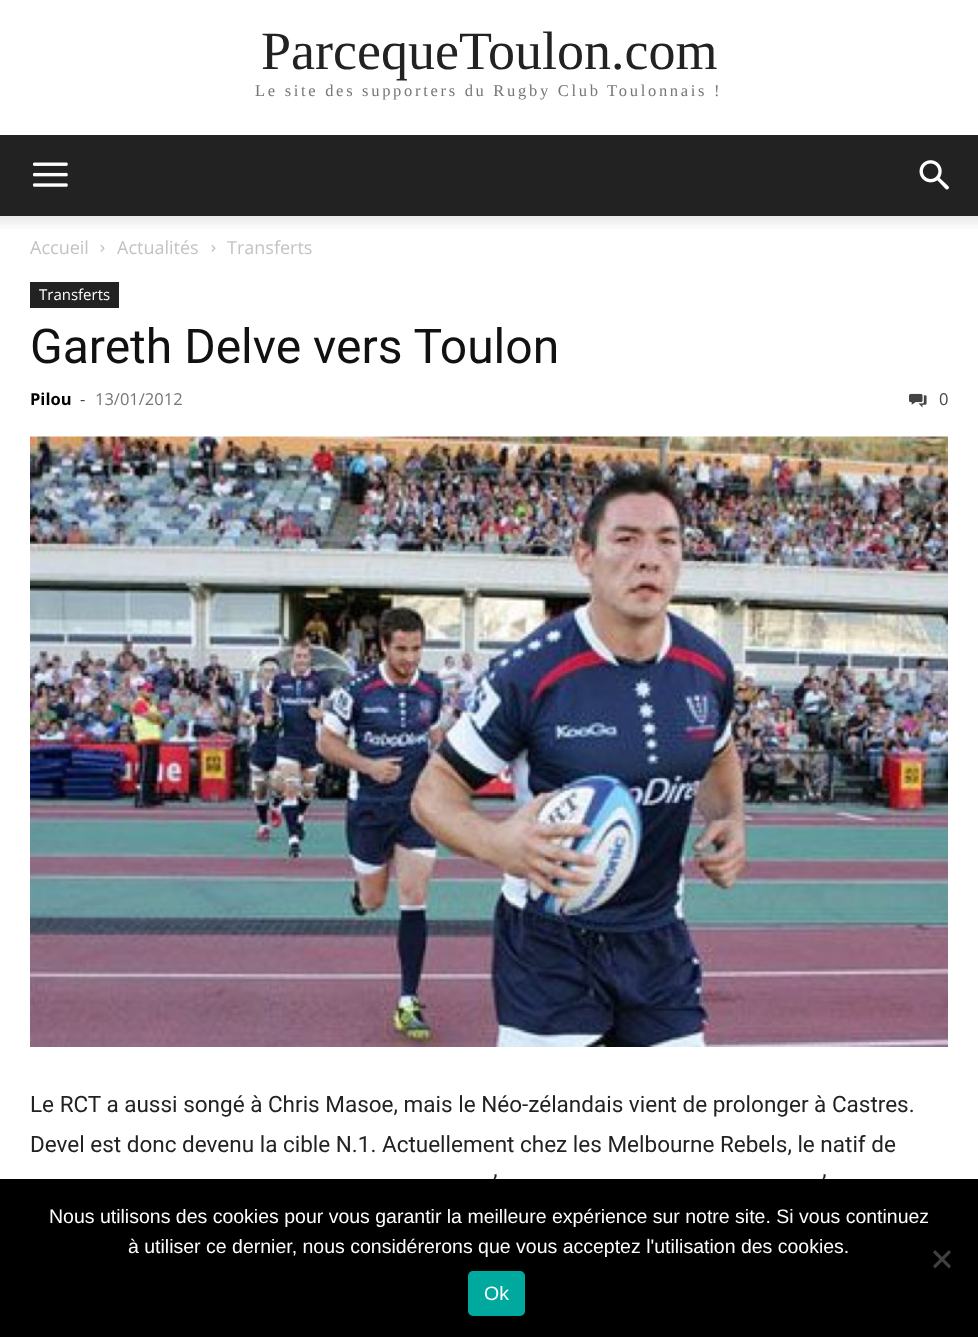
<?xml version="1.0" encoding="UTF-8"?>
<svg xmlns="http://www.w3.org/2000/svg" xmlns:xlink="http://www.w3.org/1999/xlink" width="978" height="1337">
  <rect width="100%" height="100%" fill="#ffffff" />
  <rect y="135" width="978" height="81" fill="#222222" />
  <image x="33" y="162" width="35" height="25" xlink:href="image1.png" />
  <image x="919" y="160" width="30" height="30" xlink:href="image2.png" />
  <image x="0" y="216" width="978" height="13" xlink:href="image3.png" />
  <image x="100" y="245" width="5" height="7" xlink:href="image4.png" />
  <image x="211" y="245" width="5" height="7" xlink:href="image4.png" />
  <rect x="30" y="282" width="89" height="26" fill="#222222" />
  <image x="909" y="393" width="18" height="15" xlink:href="image5.png" />
  <image x="30" y="436" width="918" height="611" xlink:href="image6.png" />
  <text x="261" y="69" style="font-family: Liberation Serif; font-size: 54px; fill: #222222">ParcequeToulon.com</text>
  <text x="255" y="96" style="font-family: Liberation Serif; font-size: 16.5px; letter-spacing: 2.7px; fill: #767676">Le site des supporters du Rugby Club Toulonnais !</text>
  <text x="30" y="254" style="font-family: Open Sans; font-size: 18px; fill: #c3c3c3">Accueil</text>
  <text x="117" y="254" style="font-family: Open Sans; font-size: 18px; fill: #c3c3c3">Actualités</text>
  <text x="227" y="254" style="font-family: Open Sans; font-size: 18px; fill: #c3c3c3">Transferts</text>
  <text x="39" y="300" style="font-family: Open Sans; font-size: 15px; fill: #ffffff">Transferts</text>
  <text x="30" y="363" style="font-family: Roboto; font-size: 48px; fill: #111111">Gareth Delve vers Toulon</text>
  <text x="30" y="405" style="font-family: Open Sans; font-size: 16.5px; font-weight: bold; fill: #000000">Pilou</text>
  <text x="80" y="405" style="font-family: Open Sans; font-size: 16.5px; fill: #444444">-</text>
  <text x="95" y="405" style="font-family: Open Sans; font-size: 16.5px; fill: #767676">13/01/2012</text>
  <text x="939" y="405" style="font-family: Open Sans; font-size: 16.5px; fill: #444444">0</text>
  <text x="30" y="1112" style="font-family: Roboto; font-size: 22.5px; fill: #222222">Le RCT a aussi songé à Chris Masoe, mais le Néo-zélandais vient de prolonger à Castres.</text>
  <text x="30" y="1152" style="font-family: Roboto; font-size: 22.5px; fill: #222222">Devel est donc devenu la cible N.1. Actuellement chez les Melbourne Rebels, le natif de</text>
  <text x="493" y="1191" style="font-family: Roboto; font-size: 22.5px; fill: #222222">’</text>
  <text x="822" y="1191" style="font-family: Roboto; font-size: 22.5px; fill: #222222">’</text>
  <rect y="1179" width="978" height="158" fill="#000000" />
  <text x="49" y="1223" style="font-family: Liberation Sans; font-size: 19.5px; fill: #ffffff">Nous utilisons des cookies pour vous garantir la meilleure expérience sur notre site. Si vous continuez</text>
  <text x="128" y="1253" style="font-family: Liberation Sans; font-size: 19.5px; fill: #ffffff">à utiliser ce dernier, nous considérerons que vous acceptez l'utilisation des cookies.</text>
  <path d="M 949 1250 l 2 2.5 l -16 16 l -2 -2.5 z" fill="#404040" />
  <path d="M 933 1252.5 l 2 -2.5 l 16 16 l -2 2.5 z" fill="#404040" />
  <rect x="468" y="1271" width="57" height="45" rx="5" fill="#00a99d" />
  <text x="484" y="1300" style="font-family: Liberation Sans; font-size: 19.5px; fill: #ffffff">Ok</text>
</svg>
